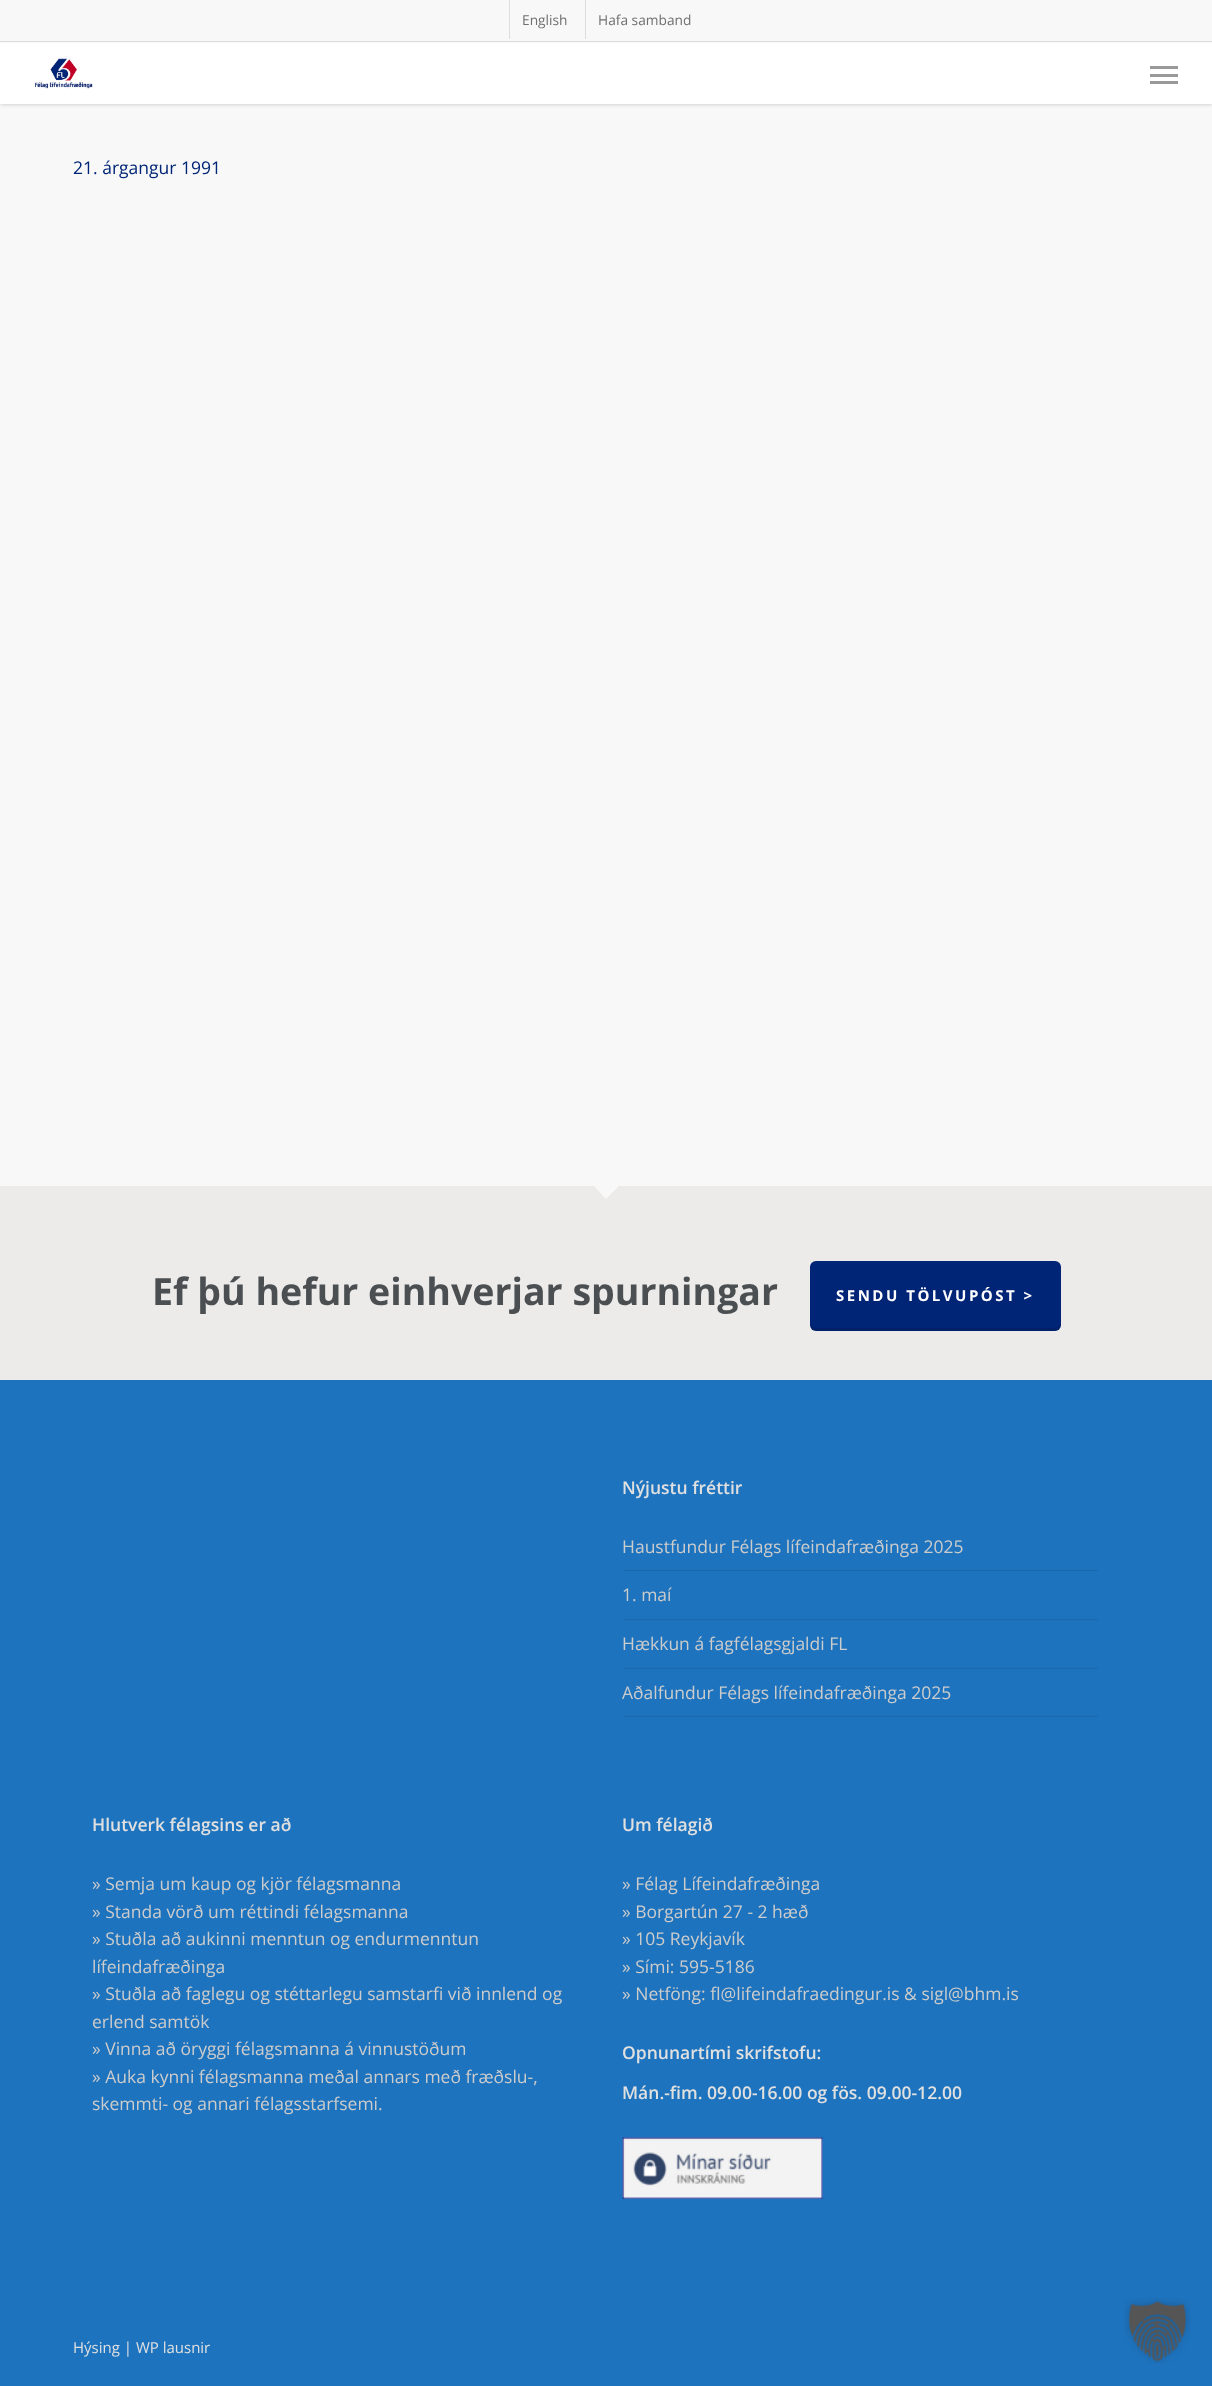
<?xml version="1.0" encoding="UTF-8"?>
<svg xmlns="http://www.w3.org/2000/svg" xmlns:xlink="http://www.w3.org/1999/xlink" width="1212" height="2386">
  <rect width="100%" height="100%" fill="#1e73be" />
  <rect y="104" width="1212" height="1082" fill="#f8f8f8" />
  <rect width="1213" height="104" fill="#000000" fill-opacity="0.22" filter="blur(2px)" />
  <rect y="43" width="1212" height="61" fill="#ffffff" />
  <rect width="1212" height="43" fill="#f8f8f8" />
  <rect y="41" width="1212" height="1" fill="#dddddd" />
  <rect x="509" width="1" height="39" fill="#dddddd" />
  <rect x="585" width="1" height="39" fill="#dddddd" />
  <image x="35" y="58" width="58" height="31" xlink:href="image1.png" />
  <rect x="1150" y="66" width="28" height="3" fill="#999999" />
  <rect x="1150" y="81" width="28" height="3" fill="#999999" />
  <rect x="1150" y="74" width="28" height="3" fill="#999999" />
  <rect y="1186" width="1212" height="194" fill="#ecebe9" />
  <path d="M 594 1186 h 25 l -13 13 z" fill="#f8f8f8" />
  <rect x="810" y="1261" width="251" height="70" rx="6" fill="#002576" />
  <path d="M 810 1321 v 4 c 0 3 3 6 6 6 h 239 c 3 0 6 -3 6 -6 v -4 c 0 4 -3 7 -6 7 h -239 c -3 0 -6 -3 -6 -7 z" fill="#000000" fill-opacity="0.1" />
  <rect x="623" y="1570" width="475" height="1" fill="#1b68ab" />
  <rect x="623" y="1619" width="475" height="1" fill="#1b68ab" />
  <rect x="623" y="1668" width="475" height="1" fill="#1b68ab" />
  <rect x="623" y="1716" width="475" height="1" fill="#1b68ab" />
  <image x="622" y="2137" width="201" height="62" xlink:href="image2.png" />
  <image x="1124" y="2298" width="67" height="66" xlink:href="image3.png" />
  <text x="522" y="25" style="font-family: Open Sans; font-size: 13.75px; fill: #707070">English</text>
  <text x="598" y="25" style="font-family: Open Sans; font-size: 13.75px; fill: #707070">Hafa samband</text>
  <text x="73" y="174" style="font-family: Open Sans; font-size: 17.5px; fill: #002576">21. árgangur 1991</text>
  <text x="152" y="1305" style="font-family: Open Sans; font-size: 37.5px; font-weight: bold; fill: #4b4f52">Ef þú hefur einhverjar spurningar</text>
  <text x="836" y="1301" style="font-family: Open Sans; font-size: 15px; font-weight: bold; letter-spacing: 2.5px; fill: #ffffff">SENDU TÖLVUPÓST &gt;</text>
  <text x="622" y="1494" style="font-family: Open Sans; font-size: 17.5px; font-weight: 600; fill: #e0e0e0">Nýjustu fréttir</text>
  <text x="622" y="1553" style="font-family: Open Sans; font-size: 17.5px; fill: #cccccc">Haustfundur Félags lífeindafræðinga 2025</text>
  <text x="622" y="1601" style="font-family: Open Sans; font-size: 17.5px; fill: #cccccc">1. maí</text>
  <text x="622" y="1650" style="font-family: Open Sans; font-size: 17.5px; fill: #cccccc">Hækkun á fagfélagsgjaldi FL</text>
  <text x="622" y="1699" style="font-family: Open Sans; font-size: 17.5px; fill: #cccccc">Aðalfundur Félags lífeindafræðinga 2025</text>
  <text x="92" y="1831" style="font-family: Open Sans; font-size: 17.5px; font-weight: 600; fill: #e0e0e0">Hlutverk félagsins er að</text>
  <text x="92" y="1890" style="font-family: Open Sans; font-size: 17.5px; fill: #cccccc">» Semja um kaup og kjör félagsmanna</text>
  <text x="92" y="1918" style="font-family: Open Sans; font-size: 17.5px; fill: #cccccc">» Standa vörð um réttindi félagsmanna</text>
  <text x="92" y="1945" style="font-family: Open Sans; font-size: 17.5px; fill: #cccccc">» Stuðla að aukinni menntun og endurmenntun</text>
  <text x="92" y="1973" style="font-family: Open Sans; font-size: 17.5px; fill: #cccccc">lífeindafræðinga</text>
  <text x="92" y="2000" style="font-family: Open Sans; font-size: 17.5px; fill: #cccccc">» Stuðla að faglegu og stéttarlegu samstarfi við innlend og</text>
  <text x="92" y="2028" style="font-family: Open Sans; font-size: 17.5px; fill: #cccccc">erlend samtök</text>
  <text x="92" y="2055" style="font-family: Open Sans; font-size: 17.5px; fill: #cccccc">» Vinna að öryggi félagsmanna á vinnustöðum</text>
  <text x="92" y="2083" style="font-family: Open Sans; font-size: 17.5px; fill: #cccccc">» Auka kynni félagsmanna meðal annars með fræðslu-,</text>
  <text x="92" y="2110" style="font-family: Open Sans; font-size: 17.5px; fill: #cccccc">skemmti- og annari félagsstarfsemi.</text>
  <text x="622" y="1831" style="font-family: Open Sans; font-size: 17.5px; font-weight: 600; fill: #e0e0e0">Um félagið</text>
  <text x="622" y="1890" style="font-family: Open Sans; font-size: 17.5px; fill: #cccccc">» Félag Lífeindafræðinga</text>
  <text x="622" y="1918" style="font-family: Open Sans; font-size: 17.5px; fill: #cccccc">» Borgartún 27 - 2 hæð</text>
  <text x="622" y="1945" style="font-family: Open Sans; font-size: 17.5px; fill: #cccccc">» 105 Reykjavík</text>
  <text x="622" y="1973" style="font-family: Open Sans; font-size: 17.5px; fill: #cccccc">» Sími: 595-5186</text>
  <text x="622" y="2000" style="font-family: Open Sans; font-size: 17.5px; fill: #cccccc">» Netföng: fl@lifeindafraedingur.is &amp; sigl@bhm.is</text>
  <text x="622" y="2059" style="font-family: Open Sans; font-size: 17.5px; font-weight: 600; fill: #e0e0e0">Opnunartími skrifstofu:</text>
  <text x="622" y="2099" style="font-family: Open Sans; font-size: 17.5px; font-weight: 600; fill: #e0e0e0">Mán.-fim. 09.00-16.00 og fös. 09.00-12.00</text>
  <text x="73" y="2353" style="font-family: Open Sans; font-size: 15px; fill: #e0e0e0">Hýsing | WP lausnir</text>
</svg>
